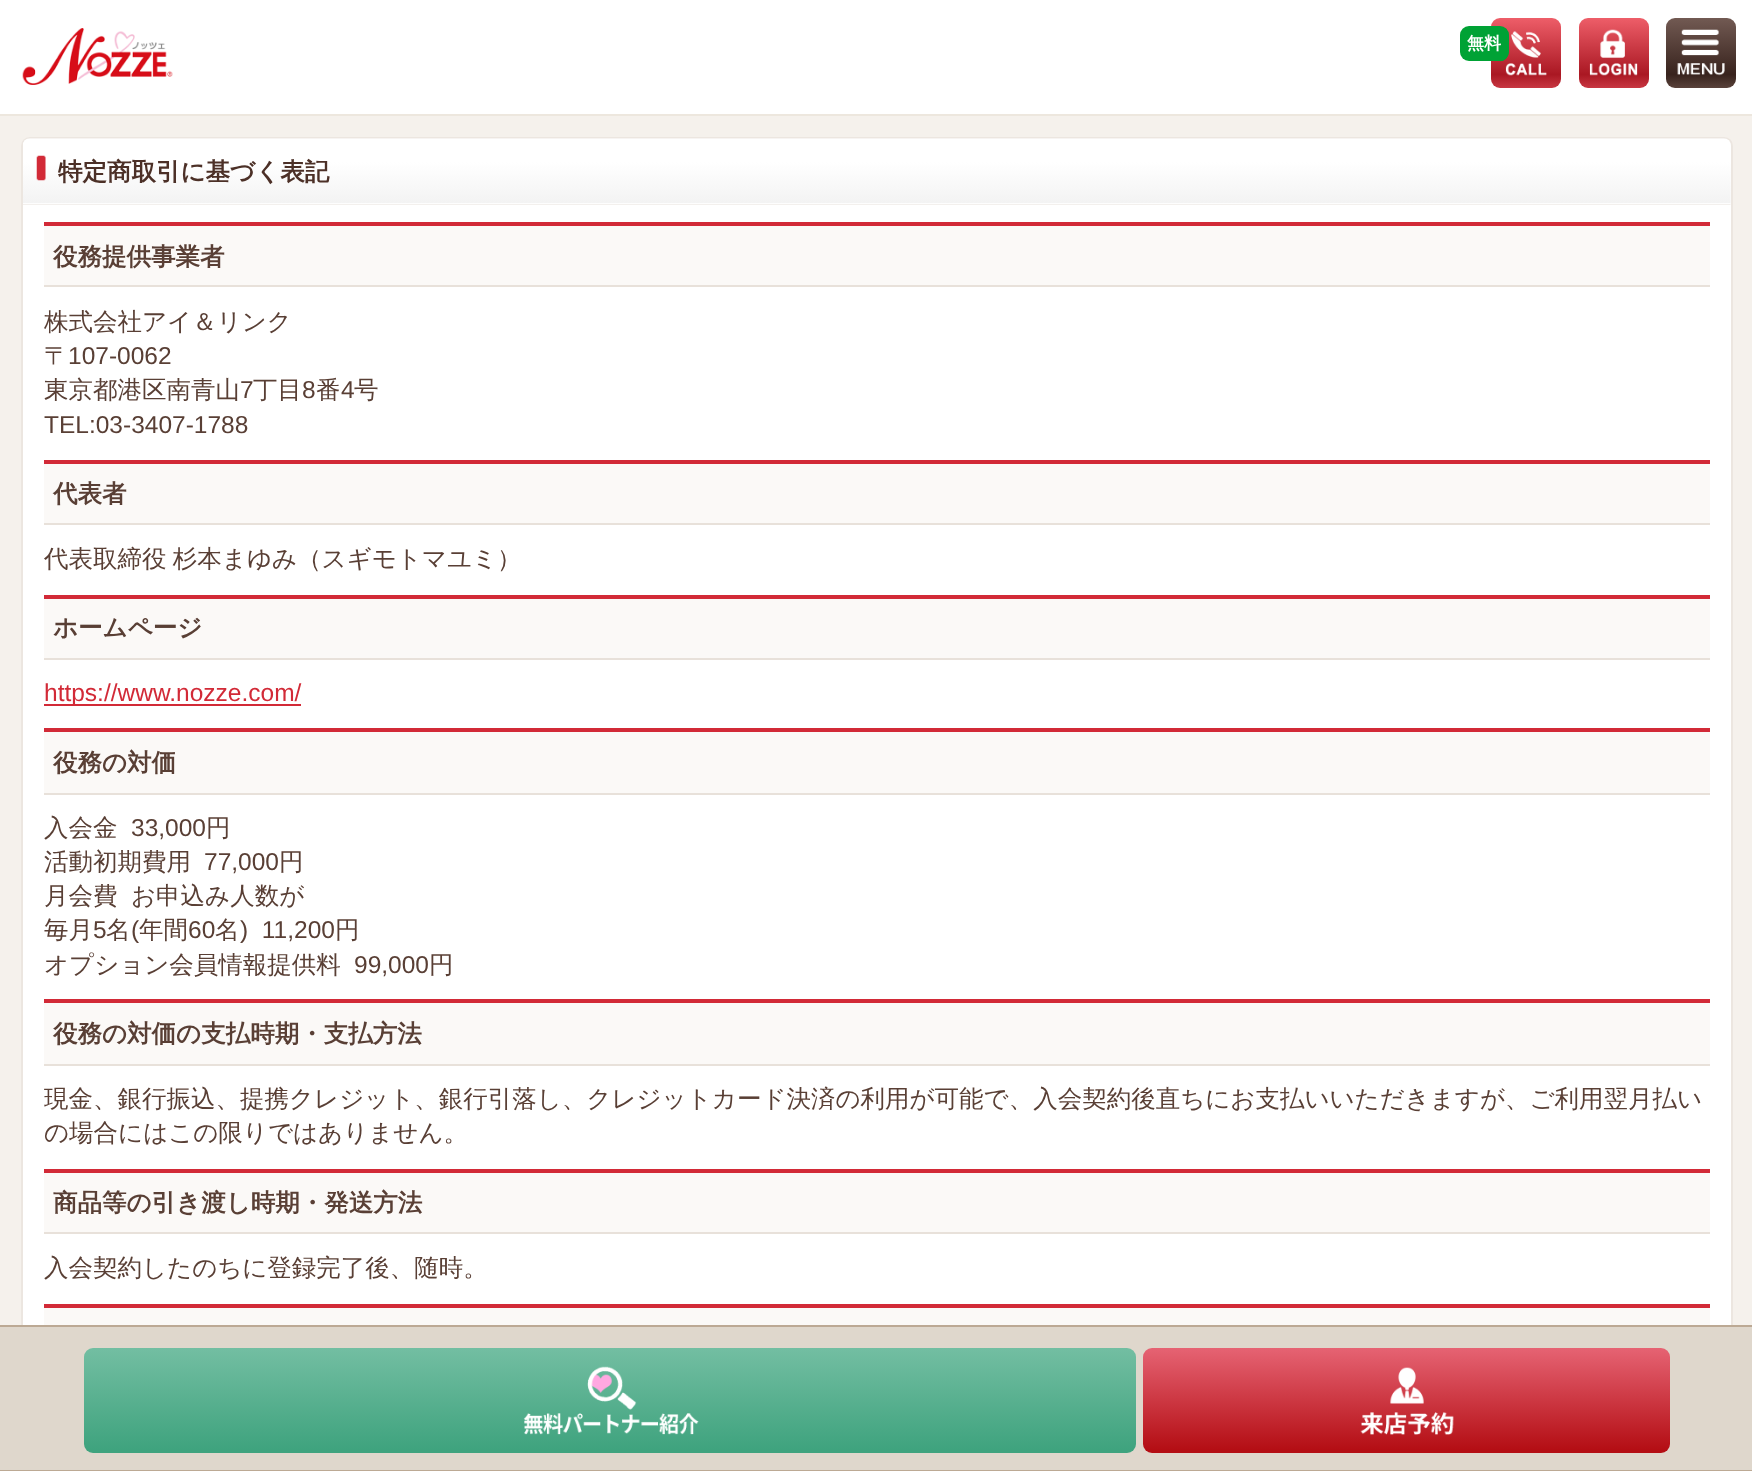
<?xml version="1.0" encoding="UTF-8"?>
<svg xmlns="http://www.w3.org/2000/svg" xmlns:xlink="http://www.w3.org/1999/xlink" width="1752" height="1471">
  <defs>
    <linearGradient id="g1" gradientUnits="userSpaceOnUse" x1="1526" y1="17" x2="1526" y2="88"><stop offset="0.01" stop-color="#ee5e69" /><stop offset="0.81" stop-color="#aa1823" /><stop offset="1" stop-color="#c83742" /></linearGradient>
    <linearGradient id="g2" gradientUnits="userSpaceOnUse" x1="1614" y1="17" x2="1614" y2="88"><stop offset="0.01" stop-color="#ee5e69" /><stop offset="0.81" stop-color="#aa1823" /><stop offset="1" stop-color="#c83742" /></linearGradient>
    <linearGradient id="g3" gradientUnits="userSpaceOnUse" x1="1701" y1="17" x2="1701" y2="88"><stop offset="0.01" stop-color="#725a53" /><stop offset="0.81" stop-color="#38231d" /><stop offset="1" stop-color="#59423b" /></linearGradient>
    <linearGradient id="g4" gradientUnits="userSpaceOnUse" x1="610" y1="1348" x2="610" y2="1453"><stop offset="0" stop-color="#73bea2" /><stop offset="0.97" stop-color="#3fa37e" /></linearGradient>
    <linearGradient id="g5" gradientUnits="userSpaceOnUse" x1="1406" y1="1348" x2="1406" y2="1453"><stop offset="0" stop-color="#e66373" /><stop offset="0.97" stop-color="#b40e14" /></linearGradient>
  </defs>
  <rect width="100%" height="100%" fill="#f5f1ec" />
  <rect width="1752" height="114" fill="#ffffff" />
  <rect y="114" width="1752" height="2" fill="#ede7de" />
  <image x="22" y="28" width="151" height="57" xlink:href="image1.png" />
  <rect x="1491" y="18" width="70" height="70" rx="9" fill="url(#g1)" />
  <image x="1500" y="28" width="47" height="48" xlink:href="image2.png" />
  <rect x="1460" y="26" width="49" height="35" rx="9" fill="#00a235" />
  <rect x="1579" y="18" width="70" height="70" rx="9" fill="url(#g2)" />
  <image x="1589" y="29" width="49" height="47" xlink:href="image3.png" />
  <rect x="1666" y="18" width="70" height="70" rx="9" fill="url(#g3)" />
  <image x="1677" y="29" width="48" height="47" xlink:href="image4.png" />
  <path d="M 30 138 h 1694 c 4.5 0 8 3.5 8 8 v 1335 h -1710 v -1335 c 0 -4.5 3.5 -8 8 -8 z" fill="#ffffff" stroke="#ece6e0" stroke-width="2" />
  <image x="23" y="138" width="1708" height="67" xlink:href="image5.png" />
  <rect x="44" y="226" width="1666" height="59" fill="#fbf9f7" />
  <rect x="44" y="222" width="1666" height="4" fill="#d22a37" />
  <rect x="44" y="285" width="1666" height="2" fill="#e8e1da" />
  <rect x="44" y="464" width="1666" height="59" fill="#fbf9f7" />
  <rect x="44" y="460" width="1666" height="4" fill="#d22a37" />
  <rect x="44" y="523" width="1666" height="2" fill="#e8e1da" />
  <rect x="44" y="599" width="1666" height="59" fill="#fbf9f7" />
  <rect x="44" y="595" width="1666" height="4" fill="#d22a37" />
  <rect x="44" y="658" width="1666" height="2" fill="#e8e1da" />
  <rect x="44" y="704" width="257" height="2" fill="#d22a37" />
  <rect x="44" y="732" width="1666" height="61" fill="#fbf9f7" />
  <rect x="44" y="728" width="1666" height="4" fill="#d22a37" />
  <rect x="44" y="793" width="1666" height="2" fill="#e8e1da" />
  <rect x="44" y="1003" width="1666" height="61" fill="#fbf9f7" />
  <rect x="44" y="999" width="1666" height="4" fill="#d22a37" />
  <rect x="44" y="1064" width="1666" height="2" fill="#e8e1da" />
  <rect x="44" y="1173" width="1666" height="59" fill="#fbf9f7" />
  <rect x="44" y="1169" width="1666" height="4" fill="#d22a37" />
  <rect x="44" y="1232" width="1666" height="2" fill="#e8e1da" />
  <rect x="44" y="1308" width="1666" height="17" fill="#fbf9f7" />
  <rect x="44" y="1304" width="1666" height="4" fill="#d22a37" />
  <rect y="1327" width="1752" height="143" fill="#dfd7cc" />
  <rect y="1325" width="1752" height="2" fill="#bca994" />
  <rect y="1470" width="1752" height="1" fill="#bca994" />
  <rect x="84" y="1348" width="1052" height="105" rx="9" fill="url(#g4)" />
  <image x="523" y="1366" width="176" height="69" xlink:href="image6.png" />
  <rect x="1143" y="1348" width="527" height="105" rx="9" fill="url(#g5)" />
  <image x="1360" y="1367" width="94" height="68" xlink:href="image7.png" />
  <text x="1467" y="49" style="font-family: WenQuanYi Zen Hei; font-size: 17px; font-weight: bold; fill: #ffffff">無料</text>
  <text x="58" y="180" style="font-family: WenQuanYi Zen Hei; font-size: 24.5px; font-weight: bold; fill: #4c3027">特定商取引に基づく表記</text>
  <text x="53" y="265" style="font-family: WenQuanYi Zen Hei; font-size: 24.5px; font-weight: bold; fill: #593f35">役務提供事業者</text>
  <text x="44" y="330" style="font-family: WenQuanYi Zen Hei; font-size: 24.5px; font-weight: 500; fill: #593f35">株式会社アイ＆リンク</text>
  <text x="44" y="364" style="font-family: WenQuanYi Zen Hei; font-size: 24.5px; font-weight: 500; fill: #593f35">〒</text>
  <text x="68" y="364" style="font-family: Liberation Sans; font-size: 24.5px; fill: #593f35">107-0062</text>
  <text x="44" y="398" style="font-family: WenQuanYi Zen Hei; font-size: 24.5px; font-weight: 500; fill: #593f35">東京都港区南青山</text>
  <text x="240" y="398" style="font-family: Liberation Sans; font-size: 24.5px; fill: #593f35">7</text>
  <text x="253" y="398" style="font-family: WenQuanYi Zen Hei; font-size: 24.5px; font-weight: 500; fill: #593f35">丁目</text>
  <text x="302" y="398" style="font-family: Liberation Sans; font-size: 24.5px; fill: #593f35">8</text>
  <text x="316" y="398" style="font-family: WenQuanYi Zen Hei; font-size: 24.5px; font-weight: 500; fill: #593f35">番</text>
  <text x="341" y="398" style="font-family: Liberation Sans; font-size: 24.5px; fill: #593f35">4</text>
  <text x="354" y="398" style="font-family: WenQuanYi Zen Hei; font-size: 24.5px; font-weight: 500; fill: #593f35">号</text>
  <text x="44" y="433" style="font-family: Liberation Sans; font-size: 24.5px; fill: #593f35">TEL:03-3407-1788</text>
  <text x="53" y="502" style="font-family: WenQuanYi Zen Hei; font-size: 24.5px; font-weight: bold; fill: #593f35">代表者</text>
  <text x="44" y="567" word-spacing="-1" style="font-family: WenQuanYi Zen Hei; font-size: 24.5px; font-weight: 500; fill: #593f35">代表取締役 杉本まゆみ（スギモトマユミ）</text>
  <text x="53" y="636" style="font-family: WenQuanYi Zen Hei; font-size: 24.5px; font-weight: bold; fill: #593f35">ホームページ</text>
  <text x="44" y="701" style="font-family: Liberation Sans; font-size: 24.5px; fill: #d22a37">https://www.nozze.com/</text>
  <text x="53" y="771" style="font-family: WenQuanYi Zen Hei; font-size: 24.5px; font-weight: bold; fill: #593f35">役務の対価</text>
  <text x="44" y="836" style="font-family: WenQuanYi Zen Hei; font-size: 24.5px; font-weight: 500; fill: #593f35">入会金</text>
  <text x="131" y="836" style="font-family: Liberation Sans; font-size: 24.5px; fill: #593f35">33,000</text>
  <text x="206" y="836" style="font-family: WenQuanYi Zen Hei; font-size: 24.5px; font-weight: 500; fill: #593f35">円</text>
  <text x="44" y="870" style="font-family: WenQuanYi Zen Hei; font-size: 24.5px; font-weight: 500; fill: #593f35">活動初期費用</text>
  <text x="204" y="870" style="font-family: Liberation Sans; font-size: 24.5px; fill: #593f35">77,000</text>
  <text x="279" y="870" style="font-family: WenQuanYi Zen Hei; font-size: 24.5px; font-weight: 500; fill: #593f35">円</text>
  <text x="44" y="904" style="font-family: WenQuanYi Zen Hei; font-size: 24.5px; font-weight: 500; fill: #593f35">月会費</text>
  <text x="131" y="904" style="font-family: WenQuanYi Zen Hei; font-size: 24.5px; font-weight: 500; fill: #593f35">お申込み人数が</text>
  <text x="44" y="938" style="font-family: WenQuanYi Zen Hei; font-size: 24.5px; font-weight: 500; fill: #593f35">毎月</text>
  <text x="93" y="938" style="font-family: Liberation Sans; font-size: 24.5px; fill: #593f35">5</text>
  <text x="106" y="938" style="font-family: WenQuanYi Zen Hei; font-size: 24.5px; font-weight: 500; fill: #593f35">名</text>
  <text x="131" y="938" style="font-family: Liberation Sans; font-size: 24.5px; fill: #593f35">(</text>
  <text x="139" y="938" style="font-family: WenQuanYi Zen Hei; font-size: 24.5px; font-weight: 500; fill: #593f35">年間</text>
  <text x="188" y="938" style="font-family: Liberation Sans; font-size: 24.5px; fill: #593f35">60</text>
  <text x="215" y="938" style="font-family: WenQuanYi Zen Hei; font-size: 24.5px; font-weight: 500; fill: #593f35">名</text>
  <text x="240" y="938" style="font-family: Liberation Sans; font-size: 24.5px; fill: #593f35" xml:space="preserve">)  11,200</text>
  <text x="335" y="938" style="font-family: WenQuanYi Zen Hei; font-size: 24.5px; font-weight: 500; fill: #593f35">円</text>
  <text x="44" y="973" style="font-family: WenQuanYi Zen Hei; font-size: 24.5px; font-weight: 500; fill: #593f35">オプション会員情報提供料</text>
  <text x="354" y="973" style="font-family: Liberation Sans; font-size: 24.5px; fill: #593f35">99,000</text>
  <text x="429" y="973" style="font-family: WenQuanYi Zen Hei; font-size: 24.5px; font-weight: 500; fill: #593f35">円</text>
  <text x="53" y="1042" style="font-family: WenQuanYi Zen Hei; font-size: 24.5px; font-weight: bold; fill: #593f35">役務の対価の支払時期・支払方法</text>
  <text x="44" y="1107" style="font-family: WenQuanYi Zen Hei; font-size: 24.5px; font-weight: 500; fill: #593f35">現金、銀行振込、提携クレジット、銀行引落し、クレジットカード決済の利用が可能で、入会契約後直ちにお支払いいただきますが、ご利用翌月払い</text>
  <text x="44" y="1141" style="font-family: WenQuanYi Zen Hei; font-size: 24.5px; font-weight: 500; fill: #593f35">の場合にはこの限りではありません。</text>
  <text x="53" y="1211" style="font-family: WenQuanYi Zen Hei; font-size: 24.5px; font-weight: bold; fill: #593f35">商品等の引き渡し時期・発送方法</text>
  <text x="44" y="1276" style="font-family: WenQuanYi Zen Hei; font-size: 24.5px; font-weight: 500; fill: #593f35">入会契約したのちに登録完了後、随時。</text>
</svg>
